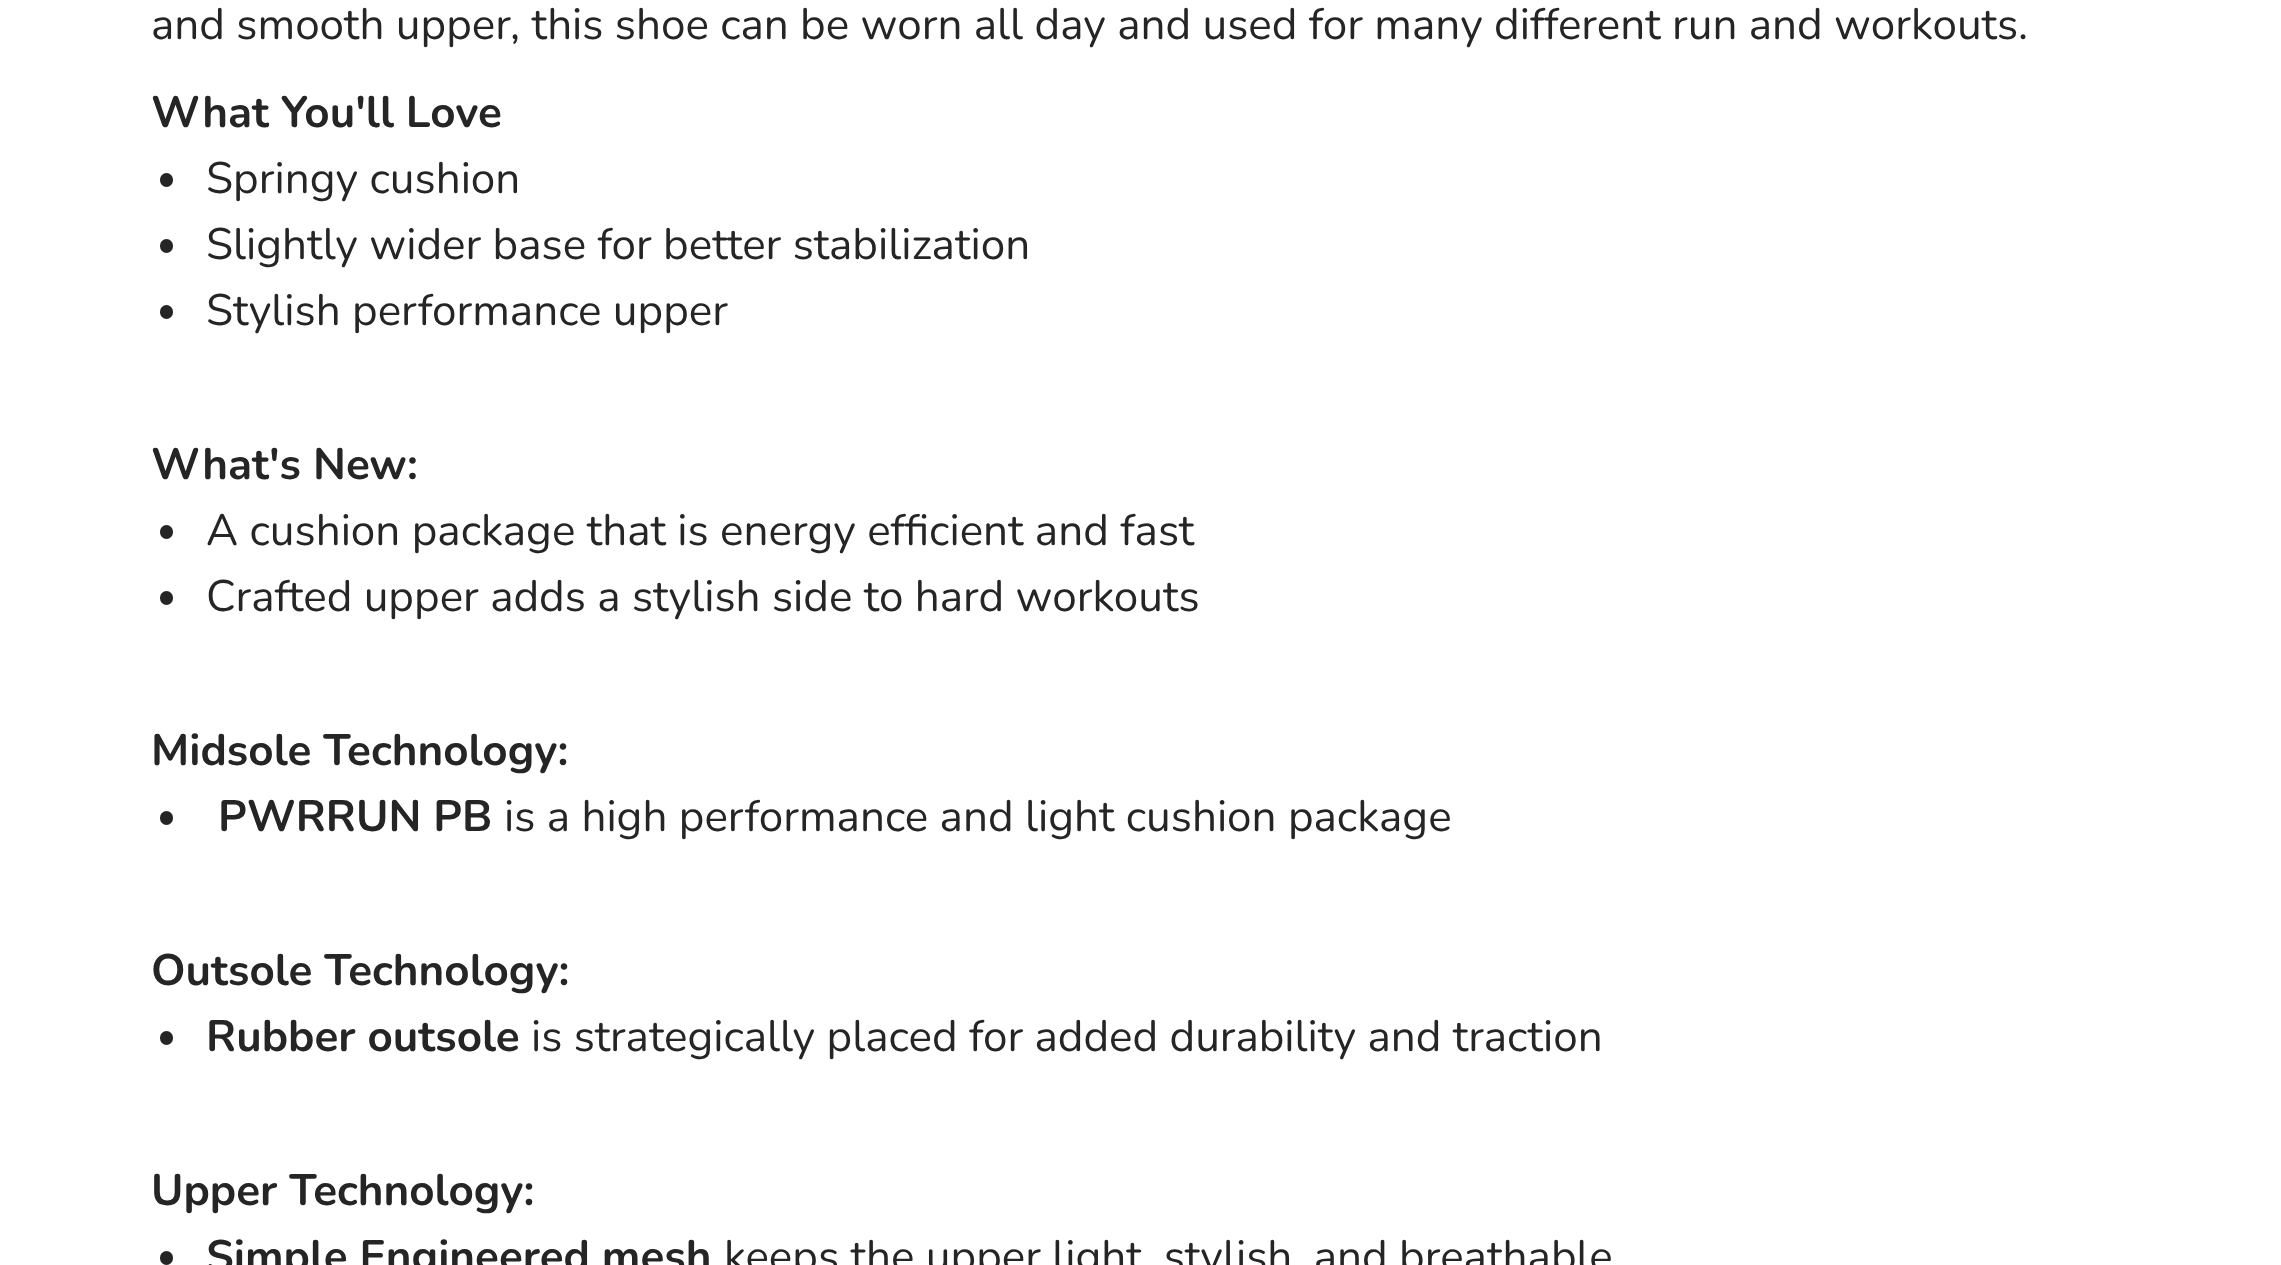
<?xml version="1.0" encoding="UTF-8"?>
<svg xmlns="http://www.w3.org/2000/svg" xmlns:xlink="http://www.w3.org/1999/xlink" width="2281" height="1265">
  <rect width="100%" height="100%" fill="#ffffff" />
  <rect x="160" y="173" width="13" height="14" rx="6.5" fill="#252525" />
  <rect x="160" y="239" width="13" height="14" rx="6.5" fill="#252525" />
  <rect x="160" y="305" width="13" height="14" rx="6.5" fill="#252525" />
  <rect x="160" y="525" width="13" height="14" rx="6.5" fill="#252525" />
  <rect x="160" y="591" width="13" height="14" rx="6.5" fill="#252525" />
  <rect x="160" y="811" width="13" height="14" rx="6.5" fill="#252525" />
  <rect x="160" y="1031" width="13" height="14" rx="6.5" fill="#252525" />
  <rect x="160" y="1251" width="13" height="14" rx="6.5" fill="#252525" />
  <text x="151" y="39" style="font-family: Nunito; font-size: 44px; fill: #252525">and smooth upper, this shoe can be worn all day and used for many different run and workouts.</text>
  <text x="151" y="127" style="font-family: Nunito; font-size: 44px; font-weight: bold; fill: #252525">What You'll Love</text>
  <text x="206" y="193" style="font-family: Nunito; font-size: 44px; fill: #252525">Springy cushion</text>
  <text x="206" y="259" style="font-family: Nunito; font-size: 44px; fill: #252525">Slightly wider base for better stabilization</text>
  <text x="206" y="325" style="font-family: Nunito; font-size: 44px; fill: #252525">Stylish performance upper</text>
  <text x="151" y="479" style="font-family: Nunito; font-size: 44px; font-weight: bold; fill: #252525">What's New:</text>
  <text x="206" y="545" style="font-family: Nunito; font-size: 44px; fill: #252525">A cushion package that is energy efficient and fast</text>
  <text x="206" y="611" style="font-family: Nunito; font-size: 44px; fill: #252525">Crafted upper adds a stylish side to hard workouts</text>
  <text x="151" y="765" style="font-family: Nunito; font-size: 44px; font-weight: bold; fill: #252525">Midsole Technology:</text>
  <text x="218" y="831" style="font-family: Nunito; font-size: 44px; font-weight: bold; fill: #252525">PWRRUN PB</text>
  <text x="504" y="831" style="font-family: Nunito; font-size: 44px; fill: #252525">is a high performance and light cushion package</text>
  <text x="151" y="985" style="font-family: Nunito; font-size: 44px; font-weight: bold; fill: #252525">Outsole Technology:</text>
  <text x="206" y="1051" style="font-family: Nunito; font-size: 44px; font-weight: bold; fill: #252525">Rubber outsole</text>
  <text x="531" y="1051" style="font-family: Nunito; font-size: 44px; fill: #252525">is strategically placed for added durability and traction</text>
  <text x="151" y="1205" style="font-family: Nunito; font-size: 44px; font-weight: bold; fill: #252525">Upper Technology:</text>
  <text x="206" y="1271" style="font-family: Nunito; font-size: 44px; font-weight: bold; fill: #252525">Simple Engineered mesh</text>
  <text x="724" y="1271" style="font-family: Nunito; font-size: 44px; fill: #252525">keeps the upper light, stylish, and breathable</text>
</svg>
